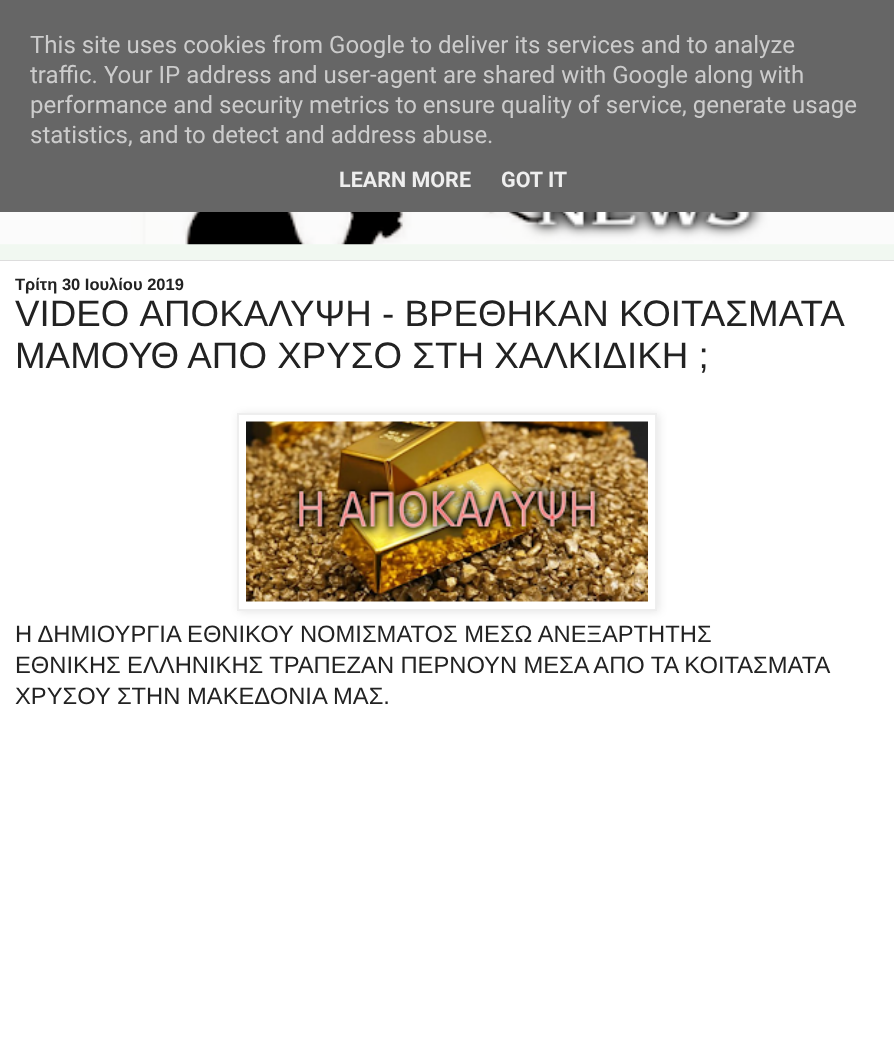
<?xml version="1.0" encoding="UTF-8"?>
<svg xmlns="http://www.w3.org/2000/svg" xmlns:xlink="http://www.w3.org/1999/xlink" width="894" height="1062">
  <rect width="100%" height="100%" fill="#ecf5ec" />
  <rect width="894" height="212" fill="#666666" />
  <image x="0" y="244" width="894" height="16" xlink:href="image1.png" />
  <image x="0" y="212" width="894" height="33" xlink:href="image2.png" />
  <rect y="260" width="894" height="1" fill="#dddddd" />
  <rect y="261" width="894" height="801" fill="#ffffff" />
  <rect x="239" y="414" width="420" height="198" fill="#000000" fill-opacity="0.1" filter="blur(4px)" />
  <rect x="238" y="414" width="418" height="196" fill="#ffffff" stroke="#eeeeee" stroke-width="2" />
  <image x="246" y="421" width="402" height="181" xlink:href="image3.png" />
  <text x="30" y="53" style="font-family: Roboto; font-size: 24px; fill: #cccccc">This site uses cookies from Google to deliver its services and to analyze</text>
  <text x="30" y="83" style="font-family: Roboto; font-size: 24px; fill: #cccccc">traffic. Your IP address and user-agent are shared with Google along with</text>
  <text x="30" y="113" style="font-family: Roboto; font-size: 24px; fill: #cccccc">performance and security metrics to ensure quality of service, generate usage</text>
  <text x="30" y="143" style="font-family: Roboto; font-size: 24px; fill: #cccccc">statistics, and to detect and address abuse.</text>
  <text x="339" y="187" style="font-family: Roboto; font-size: 21.5px; font-weight: bold; fill: #eeeeee">LEARN MORE</text>
  <text x="501" y="187" style="font-family: Roboto; font-size: 21.5px; font-weight: bold; fill: #eeeeee">GOT IT</text>
  <text x="15" y="290" style="font-family: Liberation Sans; font-size: 16.5px; font-weight: bold; fill: #222222">Τρίτη 30 Ιουλίου 2019</text>
  <text x="15" y="326" style="font-family: Liberation Sans; font-size: 36.75px; fill: #222222">VIDEO ΑΠΟΚΑΛΥΨΗ - ΒΡΕΘΗΚΑΝ ΚΟΙΤΑΣΜΑΤΑ</text>
  <text x="15" y="368" style="font-family: Liberation Sans; font-size: 36.75px; fill: #222222">ΜΑΜΟΥΘ ΑΠΟ ΧΡΥΣΟ ΣΤΗ ΧΑΛΚΙΔΙΚΗ ;</text>
  <text x="15" y="642" style="font-family: Liberation Sans; font-size: 23.75px; fill: #222222">Η ΔΗΜΙΟΥΡΓΙΑ ΕΘΝΙΚΟΥ ΝΟΜΙΣΜΑΤΟΣ ΜΕΣΩ ΑΝΕΞΑΡΤΗΤΗΣ</text>
  <text x="15" y="673" word-spacing="-0.25" style="font-family: Liberation Sans; font-size: 23.75px; fill: #222222">ΕΘΝΙΚΗΣ ΕΛΛΗΝΙΚΗΣ ΤΡΑΠΕΖΑΝ ΠΕΡΝΟΥΝ ΜΕΣΑ ΑΠΟ ΤΑ ΚΟΙΤΑΣΜΑΤΑ</text>
  <text x="15" y="704" style="font-family: Liberation Sans; font-size: 23.75px; fill: #222222">ΧΡΥΣΟΥ ΣΤΗΝ ΜΑΚΕΔΟΝΙΑ ΜΑΣ.</text>
</svg>
